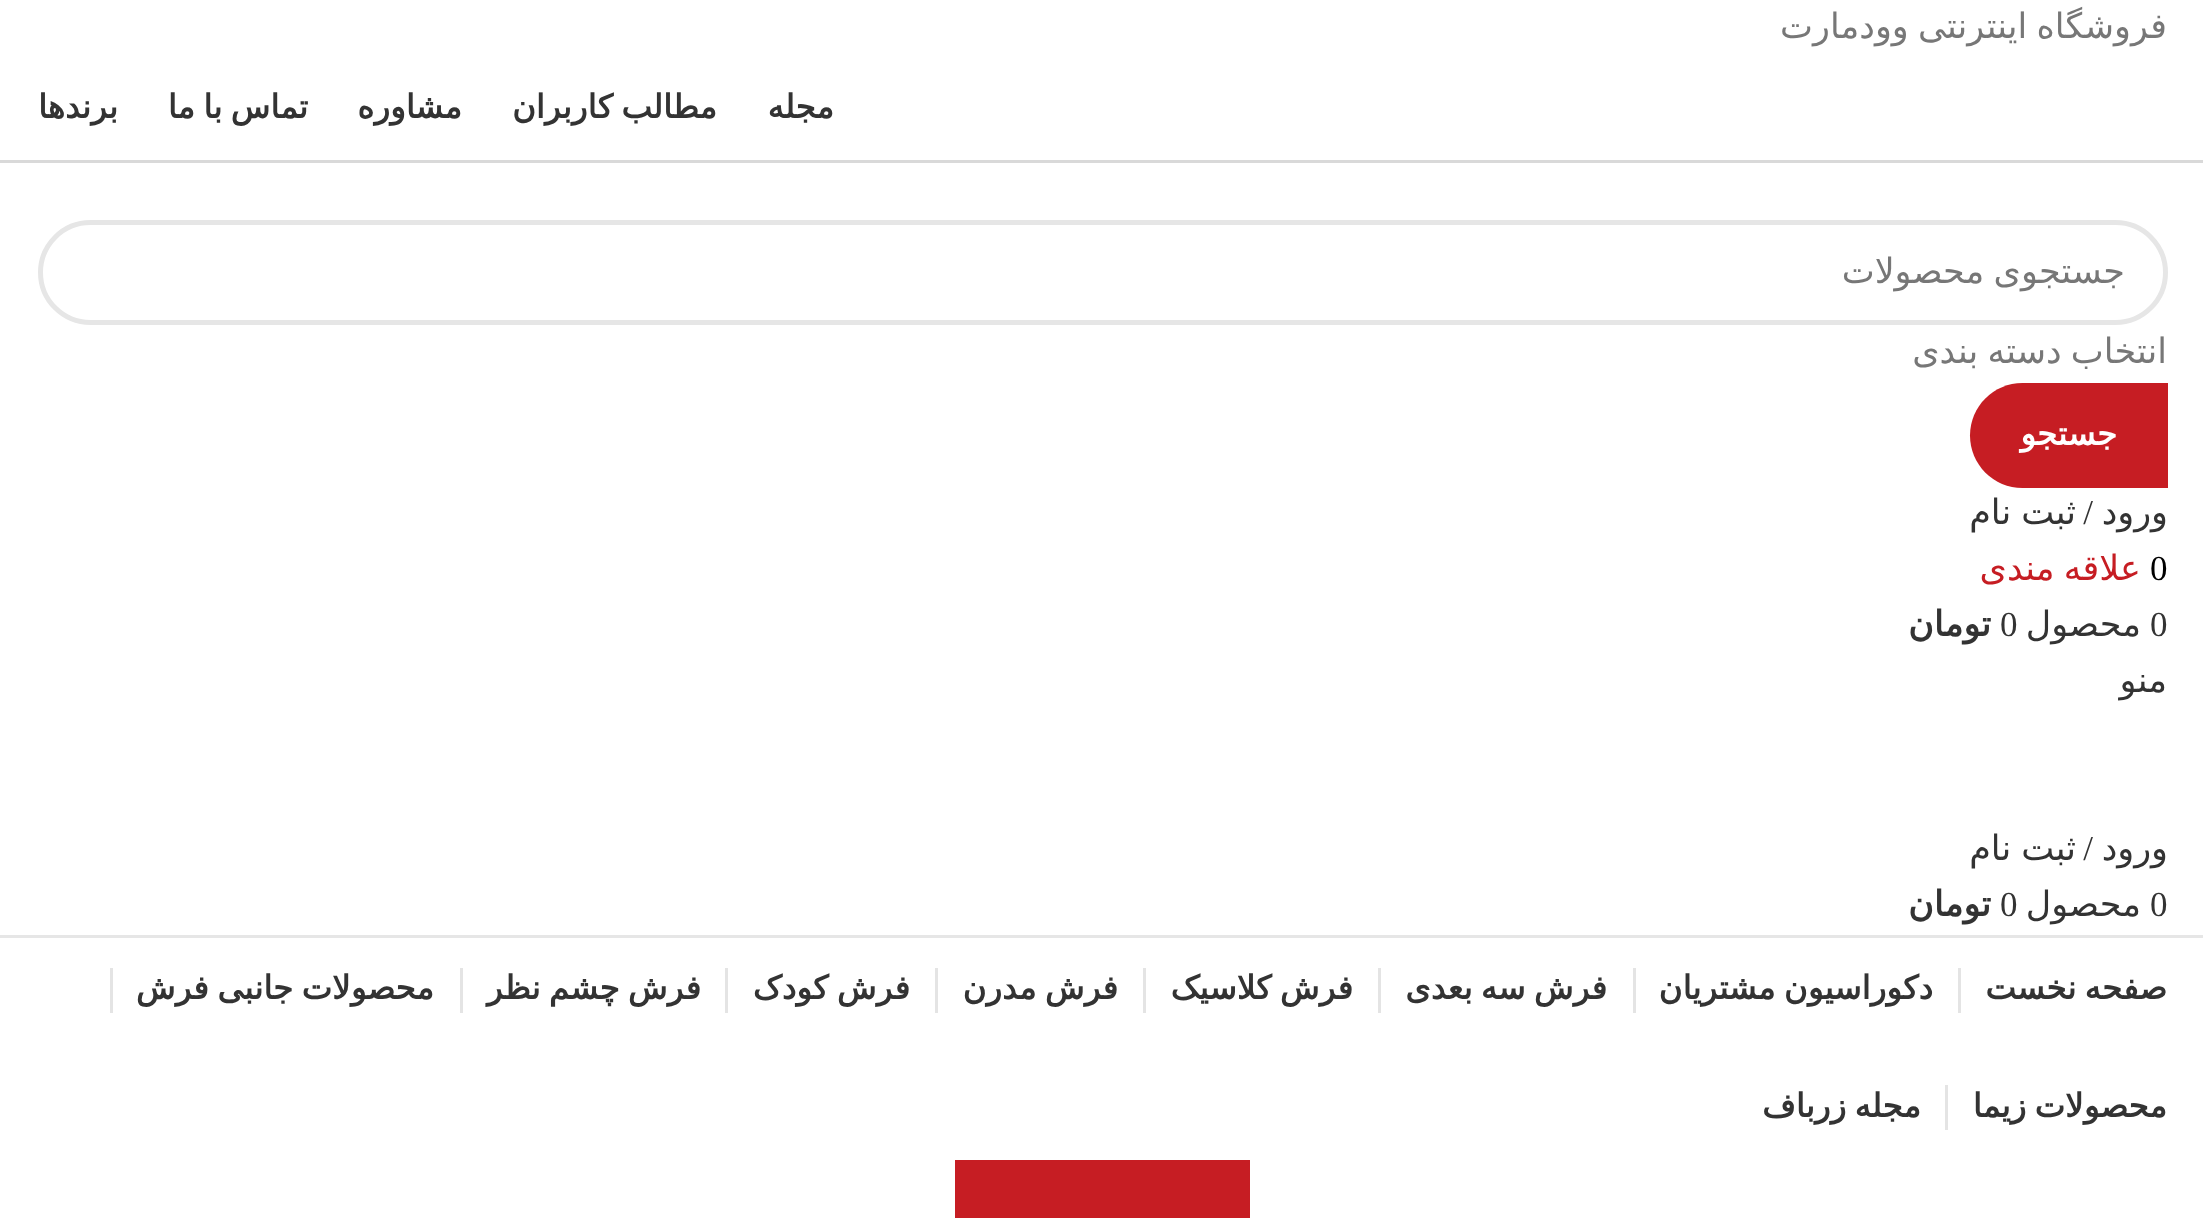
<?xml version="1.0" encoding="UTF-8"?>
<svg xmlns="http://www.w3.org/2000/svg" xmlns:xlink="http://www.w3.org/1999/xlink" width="2203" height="1218">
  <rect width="100%" height="100%" fill="#ffffff" />
  <rect y="160" width="2203" height="3" fill="#d9d9d9" />
  <rect y="935" width="2203" height="3" fill="#e6e6e6" />
  <rect x="40.5" y="222.5" width="2125" height="100" rx="50" fill="none" stroke="#e6e6e6" stroke-width="5" />
  <path d="M 2022.5 383 h 145.5 v 105 h -145.5 c -29 0 -52.5 -23.5 -52.5 -52.5 c 0 -29 23.5 -52.5 52.5 -52.5 z" fill="#c61d23" />
  <rect x="1958" y="968" width="3" height="45" fill="#e4e4e4" />
  <rect x="1633" y="968" width="3" height="45" fill="#e4e4e4" />
  <rect x="1378" y="968" width="3" height="45" fill="#e4e4e4" />
  <rect x="1143" y="968" width="3" height="45" fill="#e4e4e4" />
  <rect x="935" y="968" width="3" height="45" fill="#e4e4e4" />
  <rect x="725" y="968" width="3" height="45" fill="#e4e4e4" />
  <rect x="460" y="968" width="3" height="45" fill="#e4e4e4" />
  <rect x="110" y="968" width="3" height="45" fill="#e4e4e4" />
  <rect x="1945" y="1085" width="3" height="45" fill="#e4e4e4" />
  <rect x="955" y="1160" width="295" height="58" fill="#c61d23" />
  <text x="2167" y="38" word-spacing="-2" style="font-family: DejaVu Sans; font-size: 35px; direction: rtl; fill: #777777">فروشگاه اینترنتی وودمارت</text>
  <text x="834" y="118" style="font-family: DejaVu Sans; font-size: 32.5px; font-weight: bold; direction: rtl; fill: #333333">مجله</text>
  <text x="717" y="118" word-spacing="-2" style="font-family: DejaVu Sans; font-size: 32.5px; font-weight: bold; direction: rtl; fill: #333333">مطالب کاربران</text>
  <text x="462" y="118" style="font-family: DejaVu Sans; font-size: 32.5px; font-weight: bold; direction: rtl; fill: #333333">مشاوره</text>
  <text x="308" y="118" word-spacing="-2" style="font-family: DejaVu Sans; font-size: 32.5px; font-weight: bold; direction: rtl; fill: #333333">تماس با ما</text>
  <text x="118" y="118" style="font-family: DejaVu Sans; font-size: 32.5px; font-weight: bold; direction: rtl; fill: #333333">برندها</text>
  <text x="2125" y="283" word-spacing="-2" style="font-family: DejaVu Sans; font-size: 35px; direction: rtl; fill: #777777">جستجوی محصولات</text>
  <text x="2167" y="363" word-spacing="-2" style="font-family: DejaVu Sans; font-size: 35px; direction: rtl; fill: #777777">انتخاب دسته بندی</text>
  <text x="2117" y="445" style="font-family: DejaVu Sans; font-size: 32.5px; font-weight: bold; direction: rtl; fill: #ffffff">جستجو</text>
  <text x="2168" y="524" style="font-family: DejaVu Sans; font-size: 35px; direction: rtl; fill: #333333">ورود</text>
  <text x="2093" y="524" style="font-family: Liberation Serif; font-size: 35px; direction: rtl; fill: #333333">/</text>
  <text x="2076" y="524" word-spacing="-1" style="font-family: DejaVu Sans; font-size: 35px; direction: rtl; fill: #333333">ثبت نام</text>
  <text x="2150" y="580" style="font-family: Liberation Serif; font-size: 35px; fill: #000000">0</text>
  <text x="2141" y="580" word-spacing="-2" style="font-family: DejaVu Sans; font-size: 35px; direction: rtl; fill: #c61d23">علاقه مندی</text>
  <text x="2150" y="636" style="font-family: Liberation Serif; font-size: 35px; fill: #333333">0</text>
  <text x="2141" y="636" style="font-family: DejaVu Sans; font-size: 35px; direction: rtl; fill: #333333">محصول</text>
  <text x="2000" y="636" style="font-family: Liberation Serif; font-size: 35px; fill: #333333">0</text>
  <text x="1991" y="636" style="font-family: DejaVu Sans; font-size: 35px; font-weight: bold; direction: rtl; fill: #333333">تومان</text>
  <text x="2167" y="692" style="font-family: DejaVu Sans; font-size: 35px; direction: rtl; fill: #333333">منو</text>
  <text x="2168" y="860" style="font-family: DejaVu Sans; font-size: 35px; direction: rtl; fill: #333333">ورود</text>
  <text x="2093" y="860" style="font-family: Liberation Serif; font-size: 35px; direction: rtl; fill: #333333">/</text>
  <text x="2076" y="860" word-spacing="-1" style="font-family: DejaVu Sans; font-size: 35px; direction: rtl; fill: #333333">ثبت نام</text>
  <text x="2150" y="916" style="font-family: Liberation Serif; font-size: 35px; fill: #333333">0</text>
  <text x="2141" y="916" style="font-family: DejaVu Sans; font-size: 35px; direction: rtl; fill: #333333">محصول</text>
  <text x="2000" y="916" style="font-family: Liberation Serif; font-size: 35px; fill: #333333">0</text>
  <text x="1991" y="916" style="font-family: DejaVu Sans; font-size: 35px; font-weight: bold; direction: rtl; fill: #333333">تومان</text>
  <text x="2167" y="999" word-spacing="-2" style="font-family: DejaVu Sans; font-size: 32.5px; font-weight: bold; direction: rtl; fill: #333333">صفحه نخست</text>
  <text x="1933" y="999" word-spacing="-2" style="font-family: DejaVu Sans; font-size: 32.5px; font-weight: bold; direction: rtl; fill: #333333">دکوراسیون مشتریان</text>
  <text x="1607" y="999" word-spacing="-2" style="font-family: DejaVu Sans; font-size: 32.5px; font-weight: bold; direction: rtl; fill: #333333">فرش سه بعدی</text>
  <text x="1353" y="999" word-spacing="-2" style="font-family: DejaVu Sans; font-size: 32.5px; font-weight: bold; direction: rtl; fill: #333333">فرش کلاسیک</text>
  <text x="1118" y="999" word-spacing="-2" style="font-family: DejaVu Sans; font-size: 32.5px; font-weight: bold; direction: rtl; fill: #333333">فرش مدرن</text>
  <text x="910" y="999" word-spacing="-2" style="font-family: DejaVu Sans; font-size: 32.5px; font-weight: bold; direction: rtl; fill: #333333">فرش کودک</text>
  <text x="701" y="999" word-spacing="-2" style="font-family: DejaVu Sans; font-size: 32.5px; font-weight: bold; direction: rtl; fill: #333333">فرش چشم نظر</text>
  <text x="434" y="999" word-spacing="-2" style="font-family: DejaVu Sans; font-size: 32.5px; font-weight: bold; direction: rtl; fill: #333333">محصولات جانبی فرش</text>
  <text x="2167" y="1117" word-spacing="-2" style="font-family: DejaVu Sans; font-size: 32.5px; font-weight: bold; direction: rtl; fill: #333333">محصولات زیما</text>
  <text x="1921" y="1117" word-spacing="-2" style="font-family: DejaVu Sans; font-size: 32.5px; font-weight: bold; direction: rtl; fill: #333333">مجله زرباف</text>
</svg>
